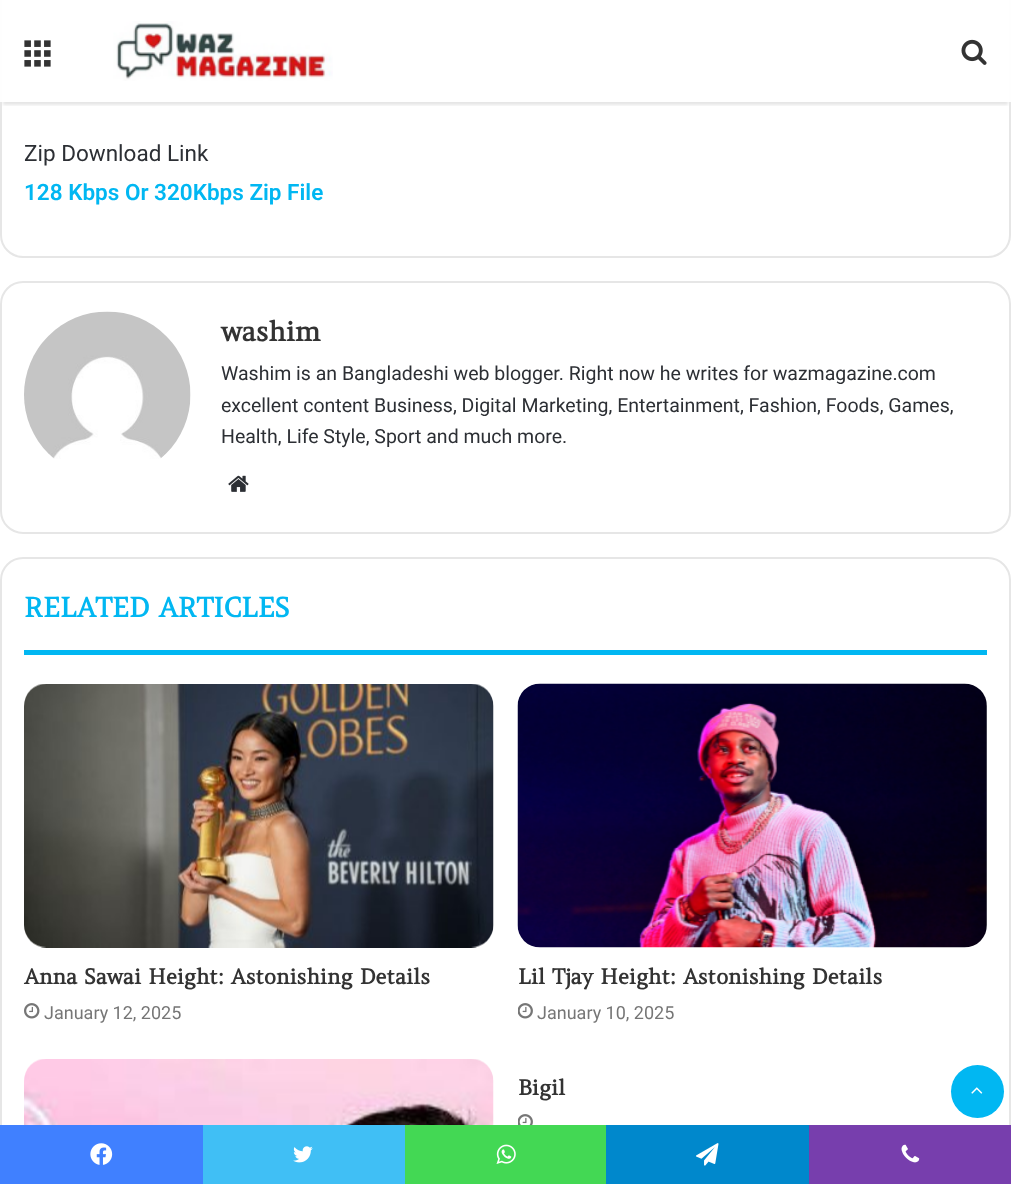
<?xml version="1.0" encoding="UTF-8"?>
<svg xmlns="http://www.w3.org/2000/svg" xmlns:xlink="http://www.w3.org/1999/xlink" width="1011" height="1184">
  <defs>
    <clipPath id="clip1"><rect x="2" y="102" width="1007" height="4" /></clipPath>
  </defs>
  <rect width="100%" height="100%" fill="#ffffff" />
  <rect x="1" y="-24" width="1009" height="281" rx="22" fill="none" stroke="#e6e6e6" stroke-width="2" />
  <g clip-path="url(#clip1)">
    <rect x="3" y="9" width="1005" height="96" fill="#000000" fill-opacity="0.1" filter="blur(1.5px)" />
  </g>
  <rect width="1011" height="102" fill="#ffffff" fill-opacity="0.95" />
  <image x="24" y="40" width="27" height="27" xlink:href="image1.png" />
  <image x="79" y="21" width="254" height="60" xlink:href="image2.png" />
  <image x="961" y="39" width="26" height="26" xlink:href="image3.png" />
  <rect x="1" y="282" width="1009" height="251" rx="22" fill="none" stroke="#e6e6e6" stroke-width="2" />
  <image x="24" y="311" width="167" height="148" xlink:href="image4.png" />
  <image x="228" y="475" width="21" height="17" xlink:href="image5.png" />
  <rect x="1" y="558" width="1009" height="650" rx="22" fill="none" stroke="#e6e6e6" stroke-width="2" />
  <rect x="24" y="650" width="963" height="5" fill="#01b7f2" />
  <image x="24" y="684" width="470" height="264" xlink:href="image6.png" />
  <image x="24" y="1003" width="16" height="16" xlink:href="image7.png" />
  <image x="517" y="683" width="470" height="265" xlink:href="image8.png" />
  <image x="518" y="1003" width="15" height="16" xlink:href="image9.png" />
  <image x="24" y="1059" width="470" height="66" xlink:href="image10.png" />
  <image x="518" y="1114" width="15" height="11" xlink:href="image11.png" />
  <circle cx="977.5" cy="1091.5" r="26.5" fill="#01b7f2" />
  <image x="971" y="1087" width="12" height="7" xlink:href="image12.png" />
  <rect y="1125" width="203" height="59" fill="#4080ff" />
  <image x="90" y="1143" width="23" height="22" xlink:href="image13.png" />
  <rect x="203" y="1125" width="202" height="59" fill="#40bff5" />
  <image x="293" y="1146" width="20" height="17" xlink:href="image14.png" />
  <rect x="405" y="1125" width="201" height="59" fill="#43d854" />
  <image x="496" y="1144" width="20" height="20" xlink:href="image15.png" />
  <rect x="606" y="1125" width="203" height="59" fill="#0088cc" />
  <image x="696" y="1143" width="23" height="23" xlink:href="image16.png" />
  <rect x="809" y="1125" width="202" height="59" fill="#773ead" />
  <image x="901" y="1144" width="19" height="19" xlink:href="image17.png" />
  <text x="24" y="161" style="font-family: Roboto; font-size: 22.5px; fill: #2c2f34">Zip Download Link</text>
  <text x="24" y="200" style="font-family: Roboto; font-size: 22.5px; font-weight: 600; fill: #01b7f2">128 Kbps Or 320Kbps Zip File</text>
  <text x="221" y="341" style="font-family: Amethysta; font-size: 27px; font-weight: bold; fill: #333333">washim</text>
  <text x="221" y="380" style="font-family: Roboto; font-size: 19.5px; fill: #2c2f34">Washim is an Bangladeshi web blogger. Right now he writes for wazmagazine.com</text>
  <text x="221" y="412" style="font-family: Roboto; font-size: 19.5px; fill: #2c2f34">excellent content Business, Digital Marketing, Entertainment, Fashion, Foods, Games,</text>
  <text x="221" y="443" style="font-family: Roboto; font-size: 19.5px; fill: #2c2f34">Health, Life Style, Sport and much more.</text>
  <text x="24" y="617" style="font-family: Amethysta; font-size: 27px; font-weight: bold; fill: #01b7f2">RELATED ARTICLES</text>
  <text x="24" y="984" style="font-family: Amethysta; font-size: 21px; font-weight: bold; fill: #333333">Anna Sawai Height: Astonishing Details</text>
  <text x="44" y="1019" style="font-family: Roboto; font-size: 18px; fill: #767676">January 12, 2025</text>
  <text x="518" y="984" style="font-family: Amethysta; font-size: 21px; font-weight: bold; fill: #333333">Lil Tjay Height: Astonishing Details</text>
  <text x="537" y="1019" style="font-family: Roboto; font-size: 18px; fill: #767676">January 10, 2025</text>
  <text x="518" y="1095" style="font-family: Amethysta; font-size: 21px; font-weight: bold; fill: #333333">Bigil</text>
</svg>
